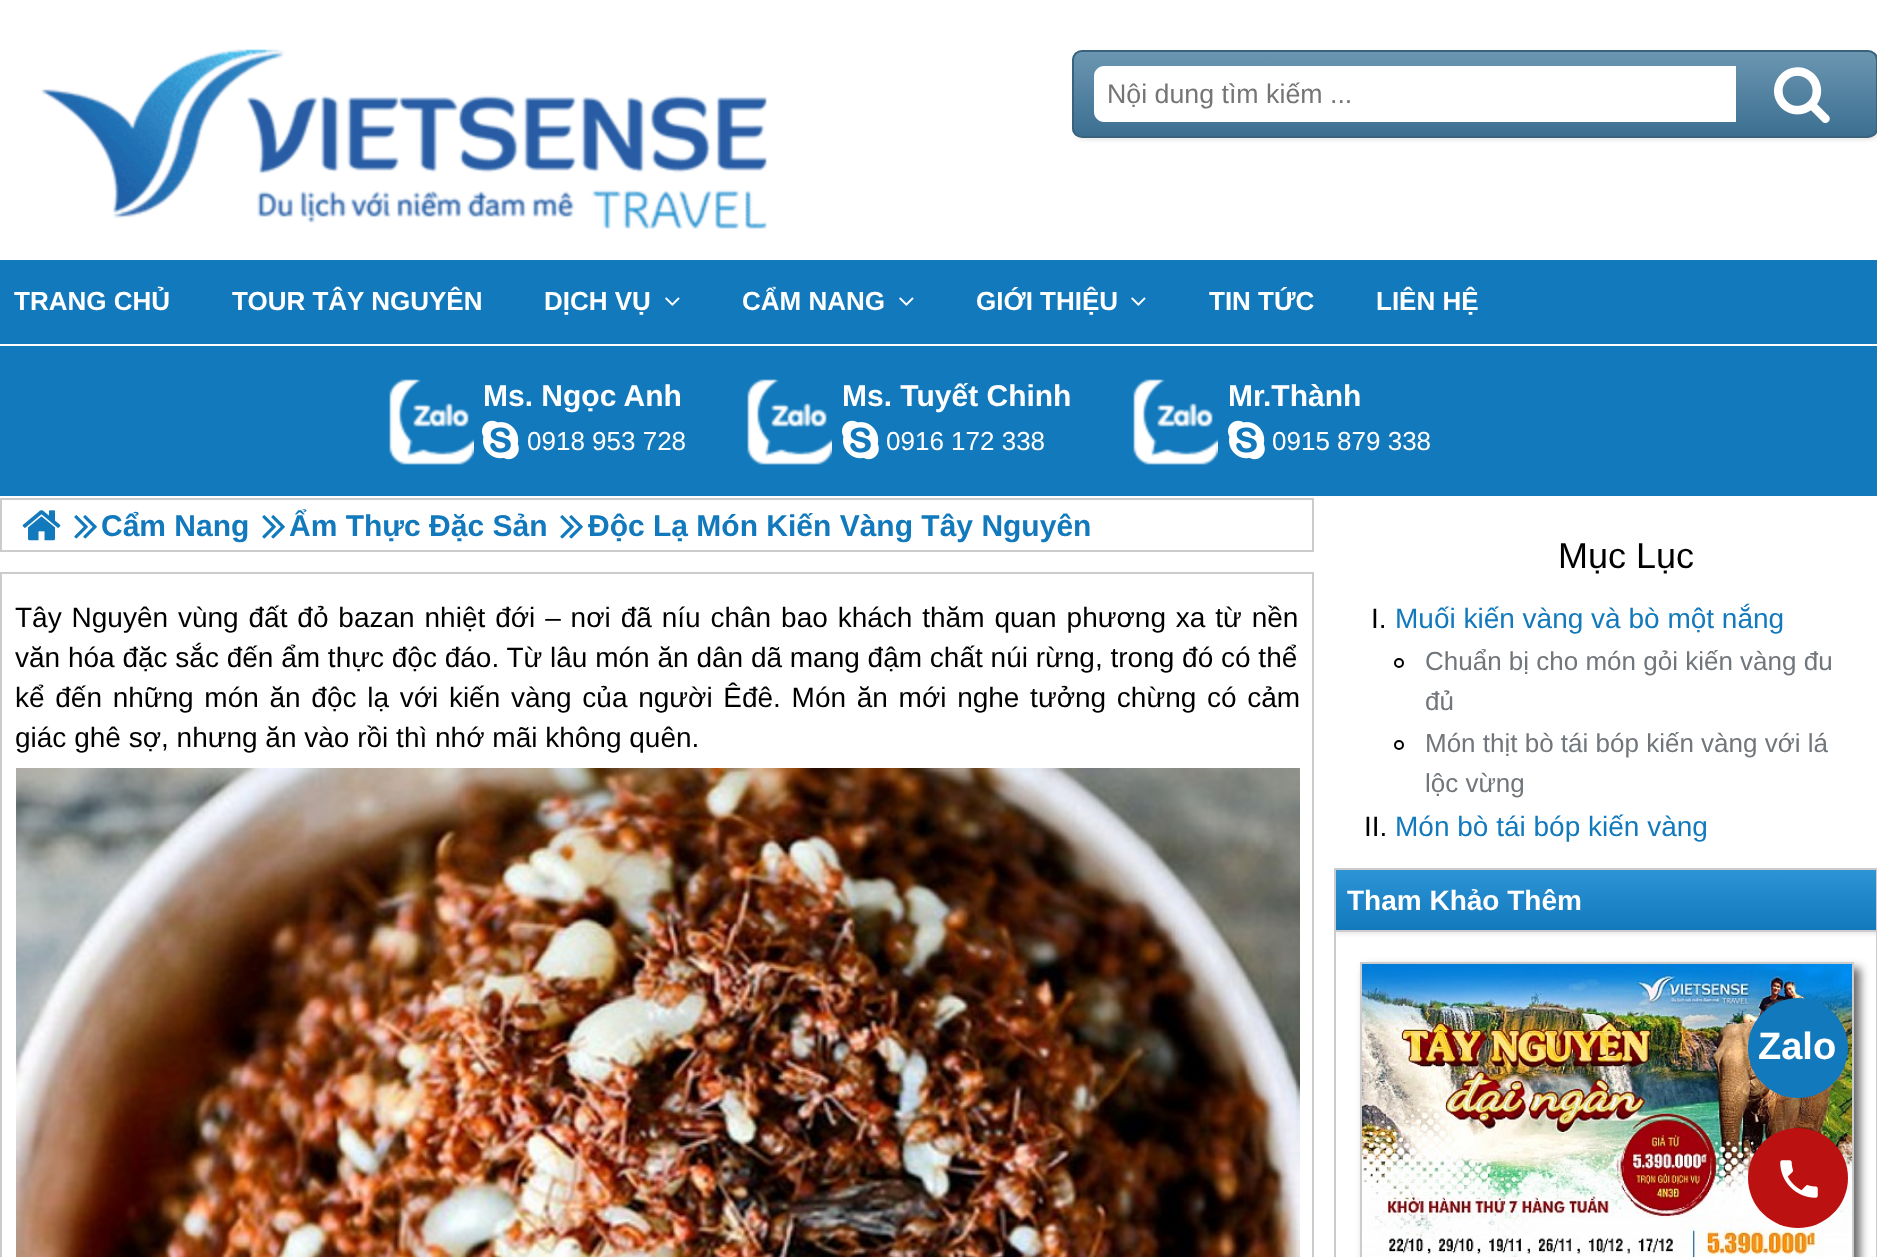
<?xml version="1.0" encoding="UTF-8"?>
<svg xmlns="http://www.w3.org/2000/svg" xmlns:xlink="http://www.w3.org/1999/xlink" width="1877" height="1257">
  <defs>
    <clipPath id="clip1"><rect x="1072" y="50" width="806" height="88" rx="10" /></clipPath>
    <linearGradient id="g1" gradientUnits="userSpaceOnUse" x1="1475" y1="52" x2="1475" y2="136"><stop offset="0" stop-color="#6b96b1" /><stop offset="1" stop-color="#3c6f91" /></linearGradient>
    <clipPath id="clip2"><path d="M 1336 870 h 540 v 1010 c 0 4.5 -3.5 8 -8 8 h -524 c -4.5 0 -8 -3.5 -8 -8 z" /></clipPath>
    <linearGradient id="g2" gradientUnits="userSpaceOnUse" x1="1606" y1="870" x2="1606" y2="930"><stop offset="0" stop-color="#2d94d6" /><stop offset="1" stop-color="#1179bc" /></linearGradient>
  </defs>
  <rect width="100%" height="100%" fill="#ffffff" />
  <image x="41" y="49" width="726" height="180" xlink:href="image1.png" />
  <rect x="1074" y="52" width="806" height="88" rx="10" fill="#e7e7e7" filter="blur(2px)" />
  <g clip-path="url(#clip1)">
    <rect x="1072" y="52" width="805" height="84" fill="url(#g1)" />
  </g>
  <rect x="1073" y="51" width="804" height="86" rx="9" fill="none" stroke="#39627d" stroke-width="2" />
  <path d="M 1104 66 h 632 v 56 h -632 c -5.5 0 -10 -4.5 -10 -10 v -36 c 0 -5.5 4.5 -10 10 -10 z" fill="#ffffff" />
  <image x="1774" y="67" width="56" height="56" xlink:href="image2.png" />
  <rect y="260" width="1877" height="84" fill="#1179bc" />
  <image x="665" y="297" width="15" height="9" xlink:href="image3.png" />
  <image x="899" y="297" width="15" height="9" xlink:href="image3.png" />
  <image x="1131" y="297" width="15" height="9" xlink:href="image3.png" />
  <rect y="346" width="1877" height="150" fill="#1179bc" />
  <image x="389" y="379" width="85" height="86" xlink:href="image4.png" />
  <image x="482" y="420" width="37" height="40" xlink:href="image5.png" />
  <image x="747" y="379" width="85" height="86" xlink:href="image4.png" />
  <image x="842" y="420" width="37" height="40" xlink:href="image5.png" />
  <image x="1133" y="379" width="85" height="86" xlink:href="image4.png" />
  <image x="1228" y="420" width="37" height="40" xlink:href="image5.png" />
  <rect x="1" y="499" width="1312" height="52" fill="none" stroke="#cccccc" stroke-width="2" />
  <image x="22" y="510" width="39" height="31" xlink:href="image6.png" />
  <image x="74" y="515" width="23" height="24" xlink:href="image7.png" />
  <image x="262" y="515" width="23" height="24" xlink:href="image7.png" />
  <image x="560" y="515" width="23" height="24" xlink:href="image7.png" />
  <rect x="1" y="573" width="1312" height="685" fill="none" stroke="#cccccc" stroke-width="2" />
  <image x="16" y="768" width="1284" height="489" xlink:href="image8.png" />
  <circle cx="1399" cy="663" r="4" fill="none" stroke="#000000" stroke-width="2" />
  <circle cx="1399" cy="745" r="4" fill="none" stroke="#000000" stroke-width="2" />
  <rect x="1335" y="869" width="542" height="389" fill="none" stroke="#cccccc" stroke-width="2" />
  <g clip-path="url(#clip2)">
    <rect x="1336" y="872" width="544" height="62" fill="#e7e7e7" filter="blur(2px)" />
  </g>
  <rect x="1336" y="870" width="540" height="60" fill="url(#g2)" />
  <rect x="1336" y="930" width="540" height="2" fill="#cccccc" />
  <rect x="1366" y="968" width="494" height="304" fill="#323232" fill-opacity="0.75" filter="blur(5px)" />
  <rect x="1361" y="963" width="492" height="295" fill="none" stroke="#cccccc" stroke-width="2" />
  <image x="1362" y="964" width="490" height="293" xlink:href="image9.png" />
  <circle cx="1798" cy="1048" r="50" fill="#1179bc" />
  <circle cx="1798" cy="1178" r="50" fill="#bc1111" />
  <image x="1780" y="1160" width="38" height="38" xlink:href="image10.png" />
  <text x="1107" y="103" style="font-family: Liberation Sans; font-size: 26.75px; fill: #757575">Nội dung tìm kiếm ...</text>
  <text x="14" y="310" style="font-family: Liberation Sans; font-size: 26px; font-weight: bold; fill: #ffffff">TRANG CHỦ</text>
  <text x="232" y="310" style="font-family: Liberation Sans; font-size: 26px; font-weight: bold; fill: #ffffff">TOUR TÂY NGUYÊN</text>
  <text x="544" y="310" style="font-family: Liberation Sans; font-size: 26px; font-weight: bold; fill: #ffffff">DỊCH VỤ</text>
  <text x="742" y="310" style="font-family: Liberation Sans; font-size: 26px; font-weight: bold; fill: #ffffff">CẨM NANG</text>
  <text x="976" y="310" style="font-family: Liberation Sans; font-size: 26px; font-weight: bold; fill: #ffffff">GIỚI THIỆU</text>
  <text x="1209" y="310" style="font-family: Liberation Sans; font-size: 26px; font-weight: bold; fill: #ffffff">TIN TỨC</text>
  <text x="1376" y="310" style="font-family: Liberation Sans; font-size: 26px; font-weight: bold; fill: #ffffff">LIÊN HỆ</text>
  <text x="483" y="406" style="font-family: Liberation Sans; font-size: 30px; font-weight: bold; fill: #ffffff">Ms. Ngọc Anh</text>
  <text x="527" y="450" style="font-family: Liberation Sans; font-size: 26px; fill: #ffffff">0918 953 728</text>
  <text x="842" y="406" style="font-family: Liberation Sans; font-size: 30px; font-weight: bold; fill: #ffffff">Ms. Tuyết Chinh</text>
  <text x="886" y="450" style="font-family: Liberation Sans; font-size: 26px; fill: #ffffff">0916 172 338</text>
  <text x="1228" y="406" style="font-family: Liberation Sans; font-size: 30px; font-weight: bold; fill: #ffffff">Mr.Thành</text>
  <text x="1272" y="450" style="font-family: Liberation Sans; font-size: 26px; fill: #ffffff">0915 879 338</text>
  <text x="101" y="536" style="font-family: Liberation Sans; font-size: 30px; font-weight: bold; fill: #1179bc">Cẩm Nang</text>
  <text x="289" y="536" style="font-family: Liberation Sans; font-size: 30px; font-weight: bold; fill: #1179bc">Ẩm Thực Đặc Sản</text>
  <text x="588" y="536" style="font-family: Liberation Sans; font-size: 30px; font-weight: bold; fill: #1179bc">Độc Lạ Món Kiến Vàng Tây Nguyên</text>
  <text x="15" y="627" word-spacing="2.1" style="font-family: Liberation Sans; font-size: 28px; fill: #000000">Tây Nguyên vùng đất đỏ bazan nhiệt đới – nơi đã níu chân bao khách thăm quan phương xa từ nền</text>
  <text x="15" y="667" style="font-family: Liberation Sans; font-size: 28px; fill: #000000">văn hóa đặc sắc đến ẩm thực độc đáo. Từ lâu món ăn dân dã mang đậm chất núi rừng, trong đó có thể</text>
  <text x="15" y="707" word-spacing="2.9" style="font-family: Liberation Sans; font-size: 28px; fill: #000000">kể đến những món ăn độc lạ với kiến vàng của người Êđê. Món ăn mới nghe tưởng chừng có cảm</text>
  <text x="15" y="747" style="font-family: Liberation Sans; font-size: 28px; fill: #000000">giác ghê sợ, nhưng ăn vào rồi thì nhớ mãi không quên.</text>
  <text x="1558" y="568" style="font-family: Liberation Sans; font-size: 36px; fill: #000000">Mục Lục</text>
  <text x="1371" y="628" style="font-family: Liberation Sans; font-size: 28px; fill: #000000">I.</text>
  <text x="1395" y="628" style="font-family: Liberation Sans; font-size: 28px; fill: #1179bc">Muối kiến vàng và bò một nắng</text>
  <text x="1425" y="670" style="font-family: Liberation Sans; font-size: 26px; fill: #71767b">Chuẩn bị cho món gỏi kiến vàng đu</text>
  <text x="1425" y="710" style="font-family: Liberation Sans; font-size: 26px; fill: #71767b">đủ</text>
  <text x="1425" y="752" style="font-family: Liberation Sans; font-size: 26px; fill: #71767b">Món thịt bò tái bóp kiến vàng với lá</text>
  <text x="1425" y="792" style="font-family: Liberation Sans; font-size: 26px; fill: #71767b">lộc vừng</text>
  <text x="1364" y="836" style="font-family: Liberation Sans; font-size: 28px; fill: #000000">II.</text>
  <text x="1395" y="836" style="font-family: Liberation Sans; font-size: 28px; fill: #1179bc">Món bò tái bóp kiến vàng</text>
  <text x="1347" y="910" style="font-family: Liberation Sans; font-size: 28px; font-weight: bold; fill: #ffffff">Tham Khảo Thêm</text>
  <text x="1758" y="1059" style="font-family: Liberation Sans; font-size: 38px; font-weight: bold; fill: #ffffff">Zalo</text>
</svg>
